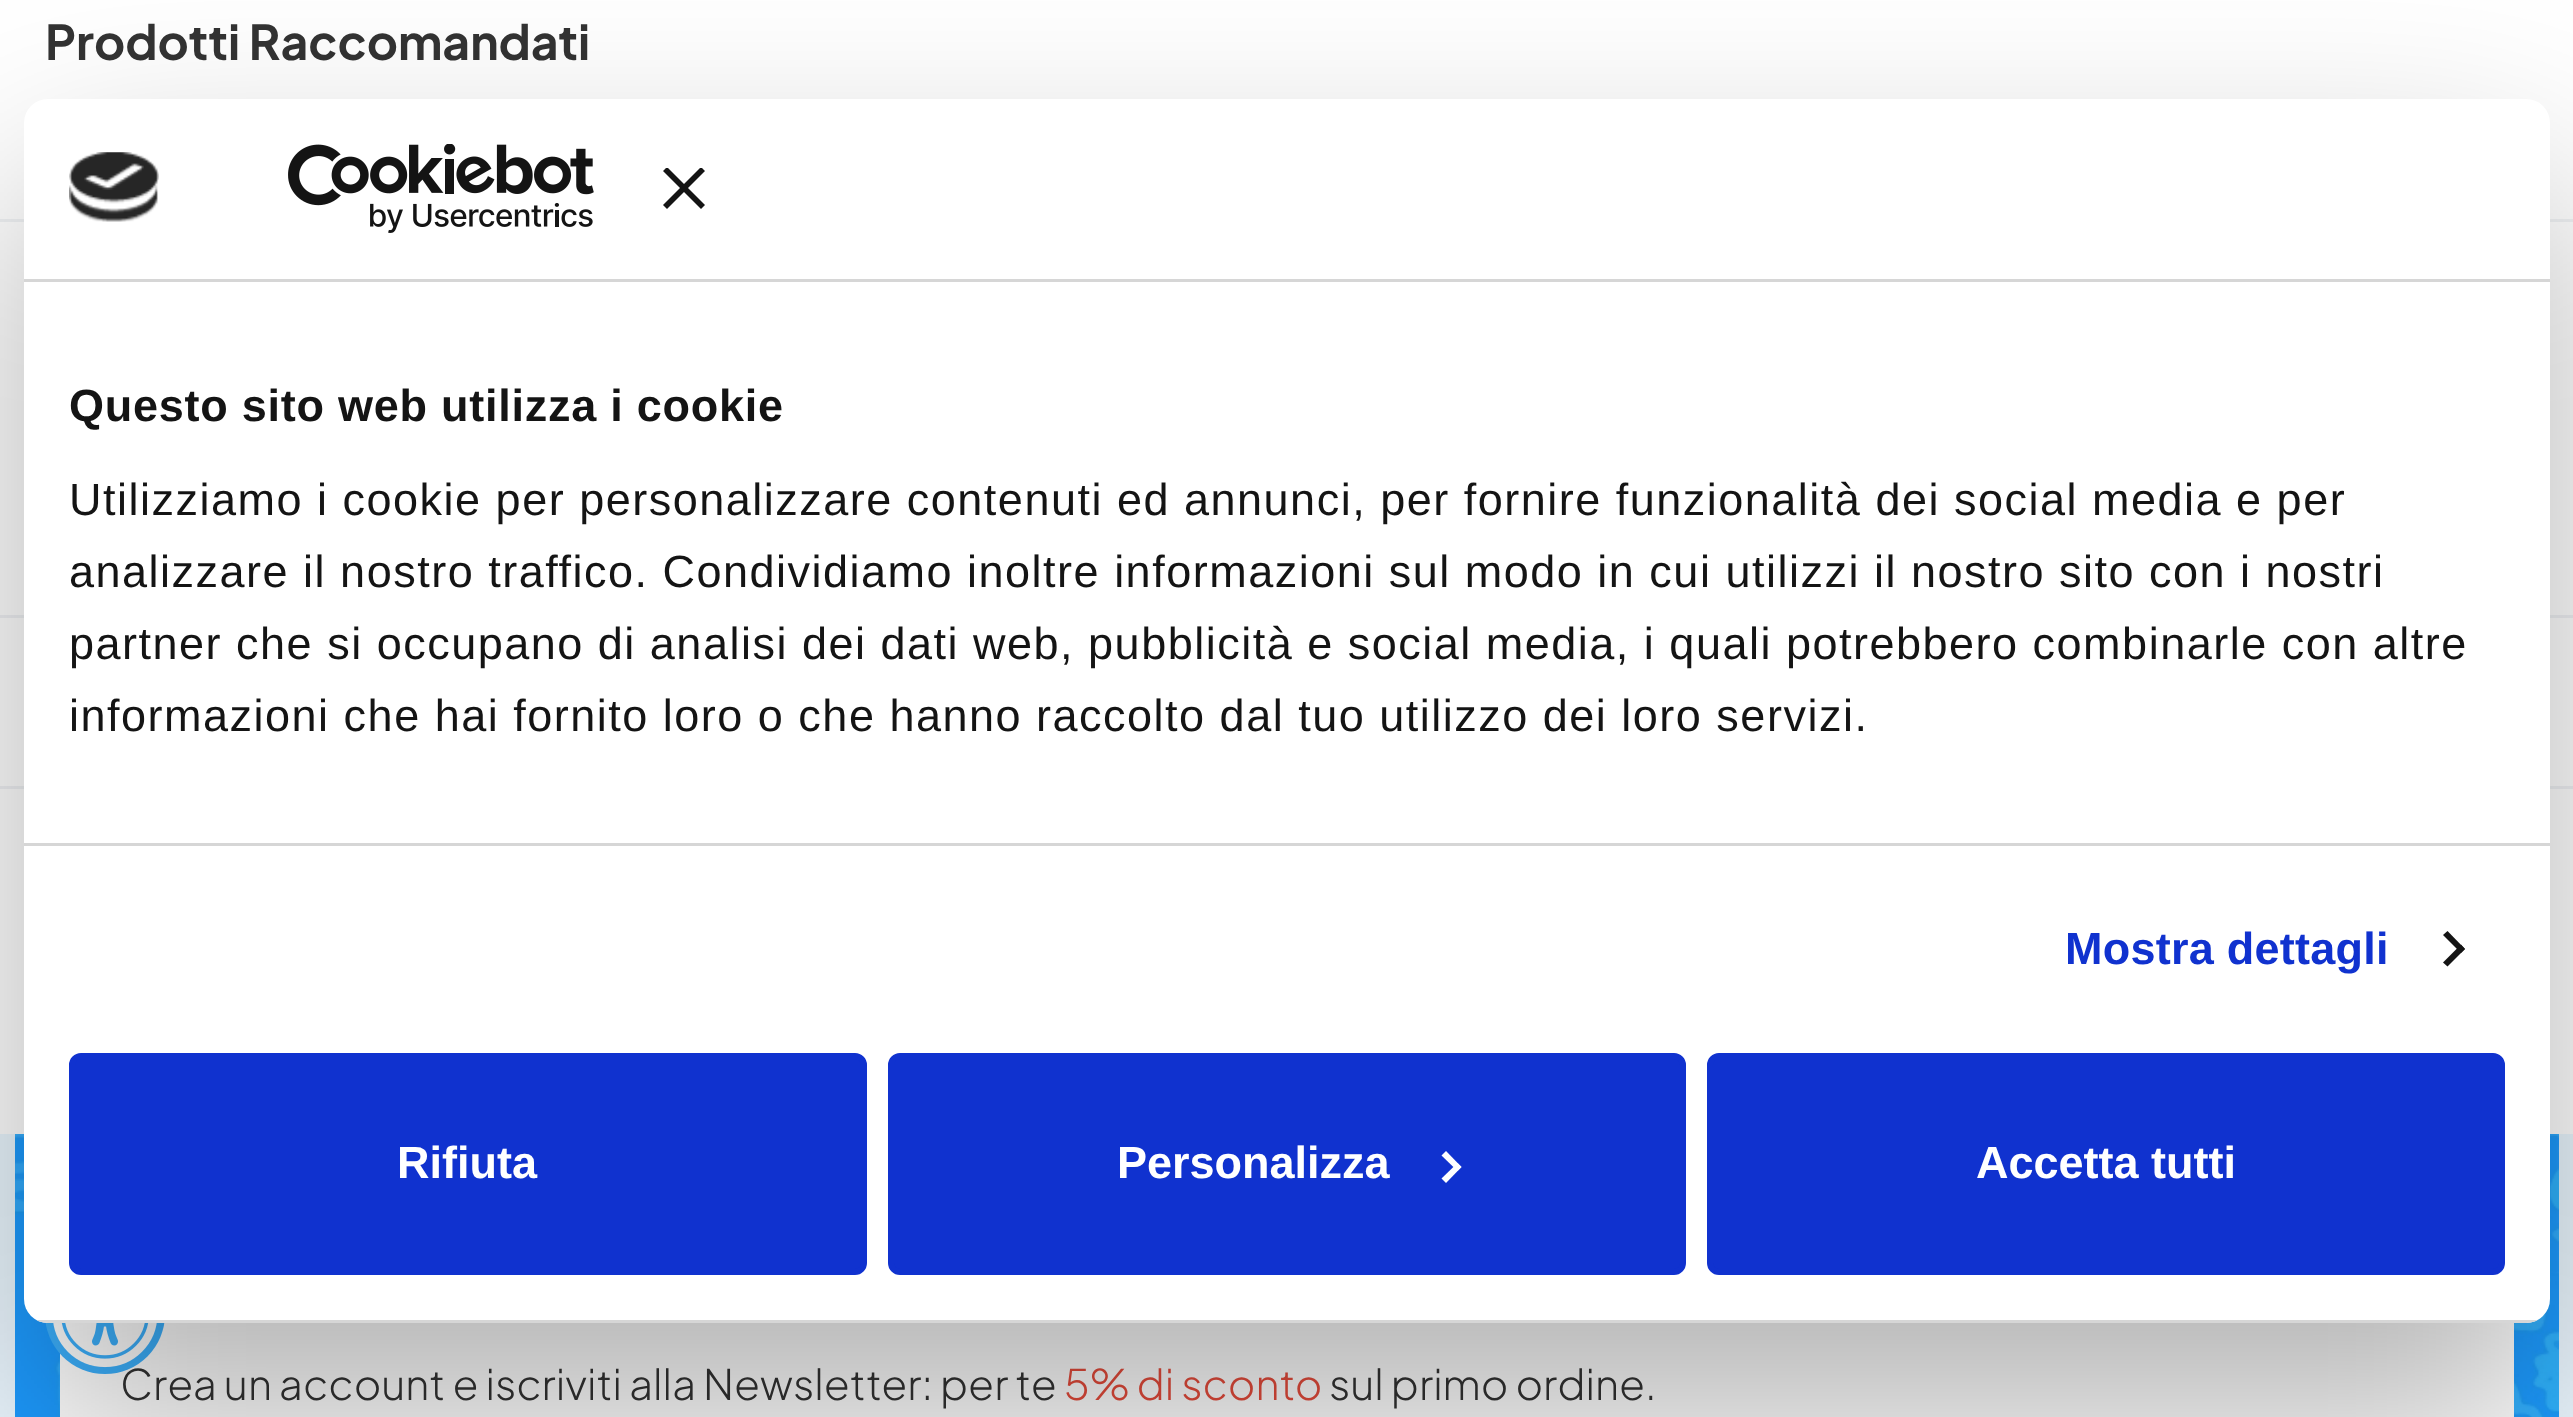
<?xml version="1.0" encoding="UTF-8"?>
<svg xmlns="http://www.w3.org/2000/svg" xmlns:xlink="http://www.w3.org/1999/xlink" width="2573" height="1417">
  <defs>
    <clipPath id="clip1"><rect x="24" y="99" width="2526" height="1224" rx="24" /></clipPath>
    <clipPath id="clip2"><rect x="663" y="168" width="42" height="42" /></clipPath>
  </defs>
  <rect width="100%" height="100%" fill="#ffffff" />
  <rect y="786" width="2573" height="3" fill="#f0f2f5" />
  <rect y="219" width="2573" height="3" fill="#f0f2f5" />
  <rect y="615" width="2573" height="3" fill="#f0f2f5" />
  <rect y="1134" width="2573" height="283" fill="#ebf7ff" />
  <image x="15" y="1134" width="2544" height="283" xlink:href="image1.png" />
  <rect x="60" y="1323" width="2454" height="94" fill="#ffffff" />
  <text x="45" y="60" style="font-family: Plus Jakarta Sans; font-size: 48px; font-weight: bold; fill: #333333">Prodotti Raccomandati</text>
  <text x="120" y="1400" style="font-family: Plus Jakarta Sans; font-size: 42px; font-weight: 300; fill: #333333">Crea un account e iscriviti alla Newsletter: per te</text>
  <text x="1064" y="1400" style="font-family: Plus Jakarta Sans; font-size: 42px; font-weight: 300; fill: #e74c3c">5% di sconto</text>
  <text x="1329" y="1400" style="font-family: Plus Jakarta Sans; font-size: 42px; font-weight: 300; fill: #333333">sul primo ordine.</text>
  <circle cx="105" cy="1314" r="60" fill="#3db2ff" />
  <image x="53" y="1323" width="104" height="45" xlink:href="image4.png" />
  <rect x="24" y="195" width="2526" height="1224" rx="24" fill="#000000" fill-opacity="0.3" filter="blur(102px)" />
  <rect x="24" y="99" width="2526" height="1224" rx="24" fill="#ffffff" />
  <rect x="891" y="1056" width="792" height="216" rx="9" fill="#1032cf" stroke="#1032cf" stroke-width="6" />
  <path d="M 1446 1151 l 15.5 16 l -4 4 l -16 -15.5 z" fill="#ffffff" />
  <path d="M 1457.5 1163 l 4 4 l -15.5 16 l -4.5 -4.5 z" fill="#ffffff" />
  <rect x="1710" y="1056" width="792" height="216" rx="9" fill="#1032cf" stroke="#1032cf" stroke-width="6" />
  <text x="1976" y="1178" style="font-family: Liberation Sans; font-size: 45px; font-weight: bold; fill: #ffffff">Accetta tutti</text>
  <text x="1117" y="1178" style="font-family: Liberation Sans; font-size: 45px; font-weight: bold; fill: #ffffff">Personalizza</text>
  <rect x="72" y="1056" width="792" height="216" rx="9" fill="#1032cf" stroke="#1032cf" stroke-width="6" />
  <text x="397" y="1178" style="font-family: Liberation Sans; font-size: 45px; font-weight: bold; fill: #ffffff">Rifiuta</text>
  <g clip-path="url(#clip1)">
    <rect x="36" y="1320" width="2502" height="3" fill="#d6d6d6" />
  </g>
  <path d="M 2447.5 931 l 17.5 18 l -4 4 l -18 -18 z" fill="#141414" />
  <path d="M 2461 944.5 l 4 4.5 l -17.5 17.5 l -4.5 -4 z" fill="#141414" />
  <text x="69" y="731" style="font-family: Liberation Sans; font-size: 45px; letter-spacing: 1.5px; fill: #141414">informazioni che hai fornito loro o che hanno raccolto dal tuo utilizzo dei loro servizi.</text>
  <text x="69" y="659" style="font-family: Liberation Sans; font-size: 45px; letter-spacing: 1.5px; fill: #141414">partner che si occupano di analisi dei dati web, pubblicità e social media, i quali potrebbero combinarle con altre</text>
  <text x="69" y="587" style="font-family: Liberation Sans; font-size: 45px; letter-spacing: 1.5px; fill: #141414">analizzare il nostro traffico. Condividiamo inoltre informazioni sul modo in cui utilizzi il nostro sito con i nostri</text>
  <text x="69" y="515" style="font-family: Liberation Sans; font-size: 45px; letter-spacing: 1.5px; fill: #141414">Utilizziamo i cookie per personalizzare contenuti ed annunci, per fornire funzionalità dei social media e per</text>
  <text x="69" y="421" style="font-family: Liberation Sans; font-size: 45px; font-weight: bold; letter-spacing: 0.75px; fill: #141414">Questo sito web utilizza i cookie</text>
  <rect x="24" y="843" width="2526" height="3" fill="#d6d6d6" />
  <text x="2065" y="964" style="font-family: Liberation Sans; font-size: 45px; font-weight: bold; letter-spacing: 0.25px; fill: #1032cf">Mostra dettagli</text>
  <g clip-path="url(#clip2)">
    <path d="M 705 171 l -4 -4 l -17 17 l -17 -17 l -4 4 l 17 17 l -17 17 l 4 4 l 17 -17 l 17 17 l 4 -4 l -17 -17 z" fill="#141414" />
  </g>
  <image x="288" y="144" width="306" height="89" xlink:href="image3.png" />
  <image x="69" y="152" width="90" height="70" xlink:href="image2.png" />
  <rect x="24" y="279" width="2526" height="3" fill="#d6d6d6" />
</svg>
